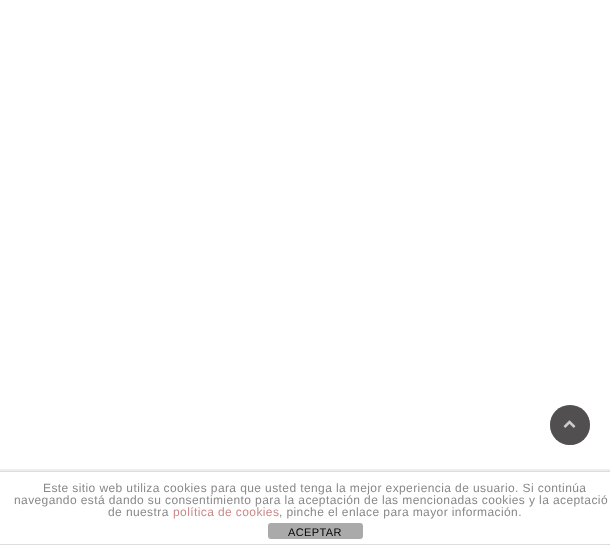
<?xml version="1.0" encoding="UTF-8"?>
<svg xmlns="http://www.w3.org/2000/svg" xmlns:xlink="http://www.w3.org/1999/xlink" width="610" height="545">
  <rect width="100%" height="100%" fill="#ffffff" />
  <circle cx="570" cy="425" r="20" fill="#524f51" />
  <circle cx="570" cy="425" r="20" fill="#524f51" fill-opacity="0.4" />
  <image x="563" y="420" width="13" height="8" xlink:href="image1.png" />
  <rect y="469" width="610" height="2" fill="#ededed" />
  <rect y="471" width="610" height="1" fill="#dddddd" />
  <rect y="544" width="610" height="1" fill="#dddddd" />
  <rect x="268" y="523" width="95" height="16" rx="3" fill="#aaaaaa" />
  <text x="43" y="492" style="font-family: Liberation Sans; font-size: 12px; letter-spacing: 0.4px; fill: #888888">Este sitio web utiliza cookies para que usted tenga la mejor experiencia de usuario. Si continúa</text>
  <text x="14" y="504" style="font-family: Liberation Sans; font-size: 12px; letter-spacing: 0.4px; fill: #888888">navegando está dando su consentimiento para la aceptación de las mencionadas cookies y la aceptació</text>
  <text x="108" y="516" style="font-family: Liberation Sans; font-size: 12px; letter-spacing: 0.4px; fill: #888888">de nuestra</text>
  <text x="173" y="516" style="font-family: Liberation Sans; font-size: 12px; letter-spacing: 0.4px; fill: #cc8888">política de cookies</text>
  <text x="279" y="516" style="font-family: Liberation Sans; font-size: 12px; letter-spacing: 0.4px; fill: #888888">, pinche el enlace para mayor información.</text>
  <text x="288" y="536" style="font-family: Liberation Sans; font-size: 11px; letter-spacing: 0.4px; fill: #000000">ACEPTAR</text>
</svg>
